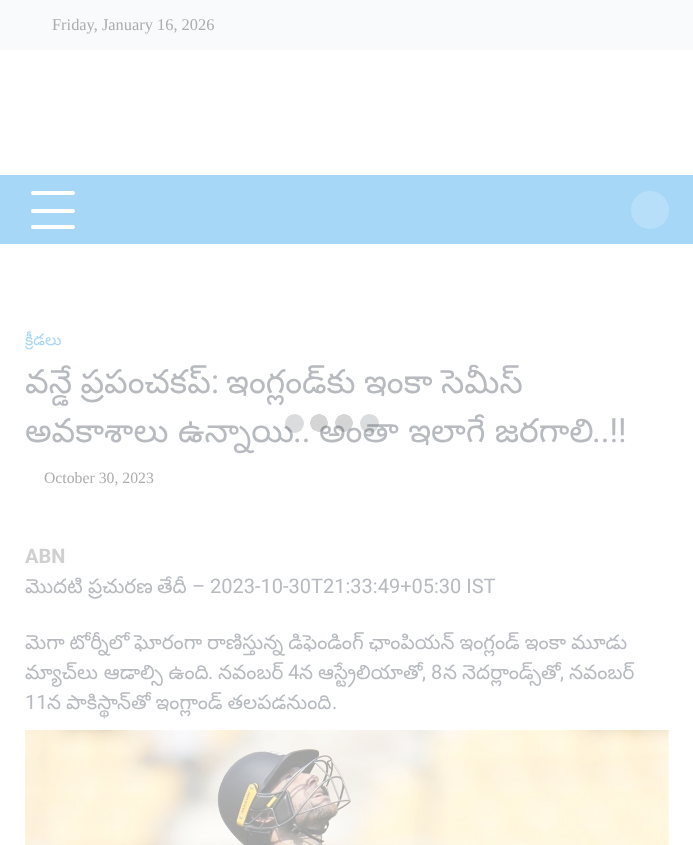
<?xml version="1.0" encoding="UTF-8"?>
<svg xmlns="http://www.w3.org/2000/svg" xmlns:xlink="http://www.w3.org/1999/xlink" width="693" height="845">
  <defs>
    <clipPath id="clip1"><rect x="25" y="306" width="644" height="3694" /></clipPath>
    <radialGradient id="g1" gradientUnits="userSpaceOnUse" cx="344" cy="423" r="9"><stop offset="0.95" stop-color="#202124" stop-opacity="0.19" /><stop offset="1" stop-color="#202124" stop-opacity="0" /></radialGradient>
    <radialGradient id="g2" gradientUnits="userSpaceOnUse" cx="319" cy="423" r="9"><stop offset="0.95" stop-color="#202124" stop-opacity="0.19" /><stop offset="1" stop-color="#202124" stop-opacity="0" /></radialGradient>
  </defs>
  <rect width="100%" height="100%" fill="#ffffff" />
  <rect width="693" height="50" fill="#f9fafc" />
  <rect y="175" width="693" height="69" fill="#a7d7f7" />
  <rect x="31" y="191" width="44" height="4" rx="2" fill="#ffffff" />
  <rect x="31" y="209" width="44" height="4" rx="2" fill="#ffffff" />
  <rect x="31" y="225" width="44" height="4" rx="2" fill="#ffffff" />
  <circle cx="650" cy="210" r="19" fill="#b8dff9" />
  <image x="25" y="730" width="644" height="115" xlink:href="image1.png" />
  <text x="52" y="30" style="font-family: Liberation Serif; font-size: 16.4px; fill: #acadae">Friday, January 16, 2026</text>
  <g clip-path="url(#clip1)">
    <text x="25" y="345" style="font-family: Noto Sans Telugu; font-size: 15.75px; fill: #a7d7f7">క్రీడలు</text>
  </g>
  <text x="25" y="393" word-spacing="-1" style="font-family: Noto Sans Telugu; font-size: 33.25px; fill: #b7babf">వన్డే ప్రపంచకప్</text>
  <text x="211" y="393" style="font-family: Roboto; font-size: 33.25px; fill: #b7babf">:</text>
  <text x="226" y="393" word-spacing="-1" style="font-family: Noto Sans Telugu; font-size: 33.25px; fill: #b7babf">ఇంగ్లండ్‌కు ఇంకా సెమీస్</text>
  <text x="25" y="442" style="font-family: Noto Sans Telugu; font-size: 33.25px; fill: #b7babf">అవకాశాలు ఉన్నాయి</text>
  <text x="293" y="442" style="font-family: Roboto; font-size: 33.25px; fill: #b7babf">..</text>
  <text x="319" y="442" style="font-family: Noto Sans Telugu; font-size: 33.25px; fill: #b7babf">అంతా ఇలాగే జరగాలి</text>
  <text x="592" y="442" style="font-family: Roboto; font-size: 33.25px; fill: #b7babf">..!!</text>
  <text x="44" y="483" style="font-family: Liberation Serif; font-size: 15.75px; fill: #acadae">October 30, 2023</text>
  <text x="25" y="563" style="font-family: Roboto; font-size: 20px; font-weight: bold; fill: #d0d0d0">ABN</text>
  <text x="25" y="593" style="font-family: Noto Sans Telugu; font-size: 20px; fill: #b7babf">మొదటి</text>
  <text x="88" y="593" style="font-family: Noto Sans Telugu; font-size: 20px; fill: #b7babf">ప్రచురణ</text>
  <text x="157" y="593" style="font-family: Noto Sans Telugu; font-size: 20px; fill: #b7babf">తేదీ</text>
  <text x="192" y="593" style="font-family: Roboto; font-size: 20px; fill: #b7babf">– 2023-10-30T21:33:49+05:30 IST</text>
  <text x="25" y="649" word-spacing="-0.75" style="font-family: Noto Sans Telugu; font-size: 20px; fill: #b7babf">మెగా టోర్నీలో ఘోరంగా రాణిస్తున్న డిఫెండింగ్ ఛాంపియన్ ఇంగ్లండ్ ఇంకా మూడు</text>
  <g clip-path="url(#clip1)">
    <text x="25" y="679" style="font-family: Noto Sans Telugu; font-size: 20px; fill: #b7babf">మ్యాచ్‌లు ఆడాల్సి ఉంది</text>
  </g>
  <text x="208" y="679" style="font-family: Roboto; font-size: 20px; fill: #b7babf">.</text>
  <text x="218" y="679" style="font-family: Noto Sans Telugu; font-size: 20px; fill: #b7babf">నవంబర్</text>
  <text x="288" y="679" style="font-family: Roboto; font-size: 20px; fill: #b7babf">4</text>
  <text x="299" y="679" style="font-family: Noto Sans Telugu; font-size: 20px; fill: #b7babf">న</text>
  <text x="318" y="679" style="font-family: Noto Sans Telugu; font-size: 20px; fill: #b7babf">ఆస్ట్రేలియాతో</text>
  <text x="422" y="679" style="font-family: Roboto; font-size: 20px; fill: #b7babf">, 8</text>
  <text x="443" y="679" style="font-family: Noto Sans Telugu; font-size: 20px; fill: #b7babf">న</text>
  <text x="462" y="679" style="font-family: Noto Sans Telugu; font-size: 20px; fill: #b7babf">నెదర్లాండ్స్‌తో</text>
  <text x="569" y="679" style="font-family: Noto Sans Telugu; font-size: 20px; fill: #b7babf">నవంబర్</text>
  <text x="560" y="679" style="font-family: Roboto; font-size: 20px; fill: #b7babf">,</text>
  <text x="25" y="709" style="font-family: Roboto; font-size: 20px; fill: #b7babf">11</text>
  <text x="47" y="709" word-spacing="-0.75" style="font-family: Noto Sans Telugu; font-size: 20px; fill: #b7babf">న పాకిస్థాన్‌తో ఇంగ్లాండ్ తలపడనుంది</text>
  <text x="332" y="709" style="font-family: Roboto; font-size: 20px; fill: #b7babf">.</text>
  <rect x="335" y="414" width="18" height="18" fill="url(#g1)" />
  <rect x="310" y="414" width="18" height="18" fill="url(#g2)" />
  <circle cx="294.5" cy="423.5" r="9.5" fill="#3d4452" fill-opacity="0.19" />
  <circle cx="369.5" cy="423.5" r="9.5" fill="#3d4452" fill-opacity="0.19" />
</svg>
